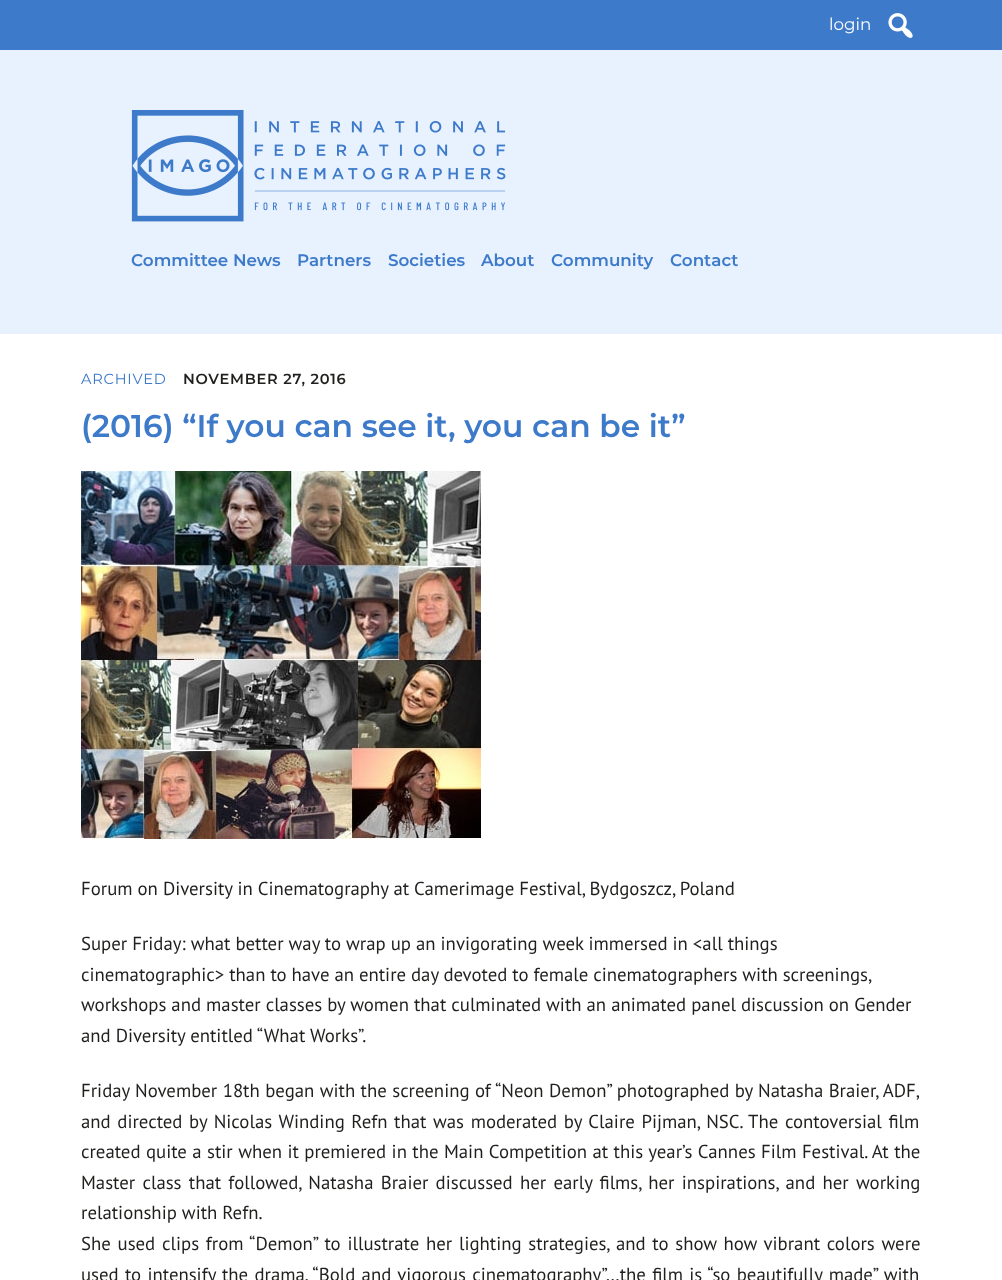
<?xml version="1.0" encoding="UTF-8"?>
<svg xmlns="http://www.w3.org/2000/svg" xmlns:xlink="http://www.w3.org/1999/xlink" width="1002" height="1280">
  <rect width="100%" height="100%" fill="#ffffff" />
  <rect y="50" width="1002" height="284" fill="#e8f2ff" />
  <rect width="1002" height="50" fill="#3d7aca" />
  <image x="888" y="13" width="25" height="25" xlink:href="image1.png" />
  <image x="131" y="110" width="375" height="112" xlink:href="image2.png" />
  <image x="81" y="471" width="400" height="368" xlink:href="image3.png" />
  <text x="829" y="30" style="font-family: Montserrat; font-size: 16.75px; font-weight: 100; fill: #ffffff">login</text>
  <text x="131" y="266" style="font-family: 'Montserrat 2'; font-size: 16.75px; font-weight: 100; fill: #3d7aca">Committee News</text>
  <text x="297" y="266" style="font-family: 'Montserrat 2'; font-size: 16.75px; font-weight: 100; fill: #3d7aca">Partners</text>
  <text x="388" y="266" style="font-family: 'Montserrat 2'; font-size: 16.75px; font-weight: 100; fill: #3d7aca">Societies</text>
  <text x="481" y="266" style="font-family: 'Montserrat 2'; font-size: 16.75px; font-weight: 100; fill: #3d7aca">About</text>
  <text x="551" y="266" style="font-family: 'Montserrat 2'; font-size: 16.75px; font-weight: 100; fill: #3d7aca">Community</text>
  <text x="670" y="266" style="font-family: 'Montserrat 2'; font-size: 16.75px; font-weight: 100; fill: #3d7aca">Contact</text>
  <text x="81" y="384" style="font-family: Montserrat; font-size: 14.6px; font-weight: 100; letter-spacing: 0.75px; fill: #3d7aca">ARCHIVED</text>
  <text x="183" y="384" style="font-family: 'Montserrat 2'; font-size: 14.6px; font-weight: 100; letter-spacing: 0.75px; fill: #1f1f1d">NOVEMBER 27, 2016</text>
  <text x="81" y="437" style="font-family: 'Montserrat 2'; font-size: 31.3px; font-weight: 100; fill: #3d7aca">(2016) “If you can see it, you can be it”</text>
  <text x="81" y="895" style="font-family: PT Sans; font-size: 18.8px; fill: #1f1f1d">Forum on Diversity in Cinematography at Camerimage Festival, Bydgoszcz, Poland</text>
  <text x="81" y="950" style="font-family: PT Sans; font-size: 18.8px; fill: #1f1f1d">Super Friday: what better way to wrap up an invigorating week immersed in &lt;all things</text>
  <text x="81" y="981" word-spacing="-0.1" style="font-family: PT Sans; font-size: 18.8px; fill: #1f1f1d">cinematographic&gt; than to have an entire day devoted to female cinematographers with screenings,</text>
  <text x="81" y="1011" style="font-family: PT Sans; font-size: 18.8px; fill: #1f1f1d">workshops and master classes by women that culminated with an animated panel discussion on Gender</text>
  <text x="81" y="1042" style="font-family: PT Sans; font-size: 18.8px; fill: #1f1f1d">and Diversity entitled “What Works”.</text>
  <text x="81" y="1097" word-spacing="0.4" style="font-family: PT Sans; font-size: 18.8px; fill: #1f1f1d">Friday November 18th began with the screening of “Neon Demon” photographed by Natasha Braier, ADF,</text>
  <text x="81" y="1128" word-spacing="1.6" style="font-family: PT Sans; font-size: 18.8px; fill: #1f1f1d">and directed by Nicolas Winding Refn that was moderated by Claire Pijman, NSC. The contoversial film</text>
  <text x="81" y="1158" word-spacing="0.4" style="font-family: PT Sans; font-size: 18.8px; fill: #1f1f1d">created quite a stir when it premiered in the Main Competition at this year’s Cannes Film Festival. At the</text>
  <text x="81" y="1189" word-spacing="2.25" style="font-family: PT Sans; font-size: 18.8px; fill: #1f1f1d">Master class that followed, Natasha Braier discussed her early films, her inspirations, and her working</text>
  <text x="81" y="1219" style="font-family: PT Sans; font-size: 18.8px; fill: #1f1f1d">relationship with Refn.</text>
  <text x="81" y="1250" word-spacing="1.75" style="font-family: PT Sans; font-size: 18.8px; fill: #1f1f1d">She used clips from “Demon” to illustrate her lighting strategies, and to show how vibrant colors were</text>
  <text x="81" y="1281" word-spacing="1.25" style="font-family: PT Sans; font-size: 18.8px; fill: #1f1f1d">used to intensify the drama. “Bold and vigorous cinematography”…the film is “so beautifully made” with</text>
</svg>
